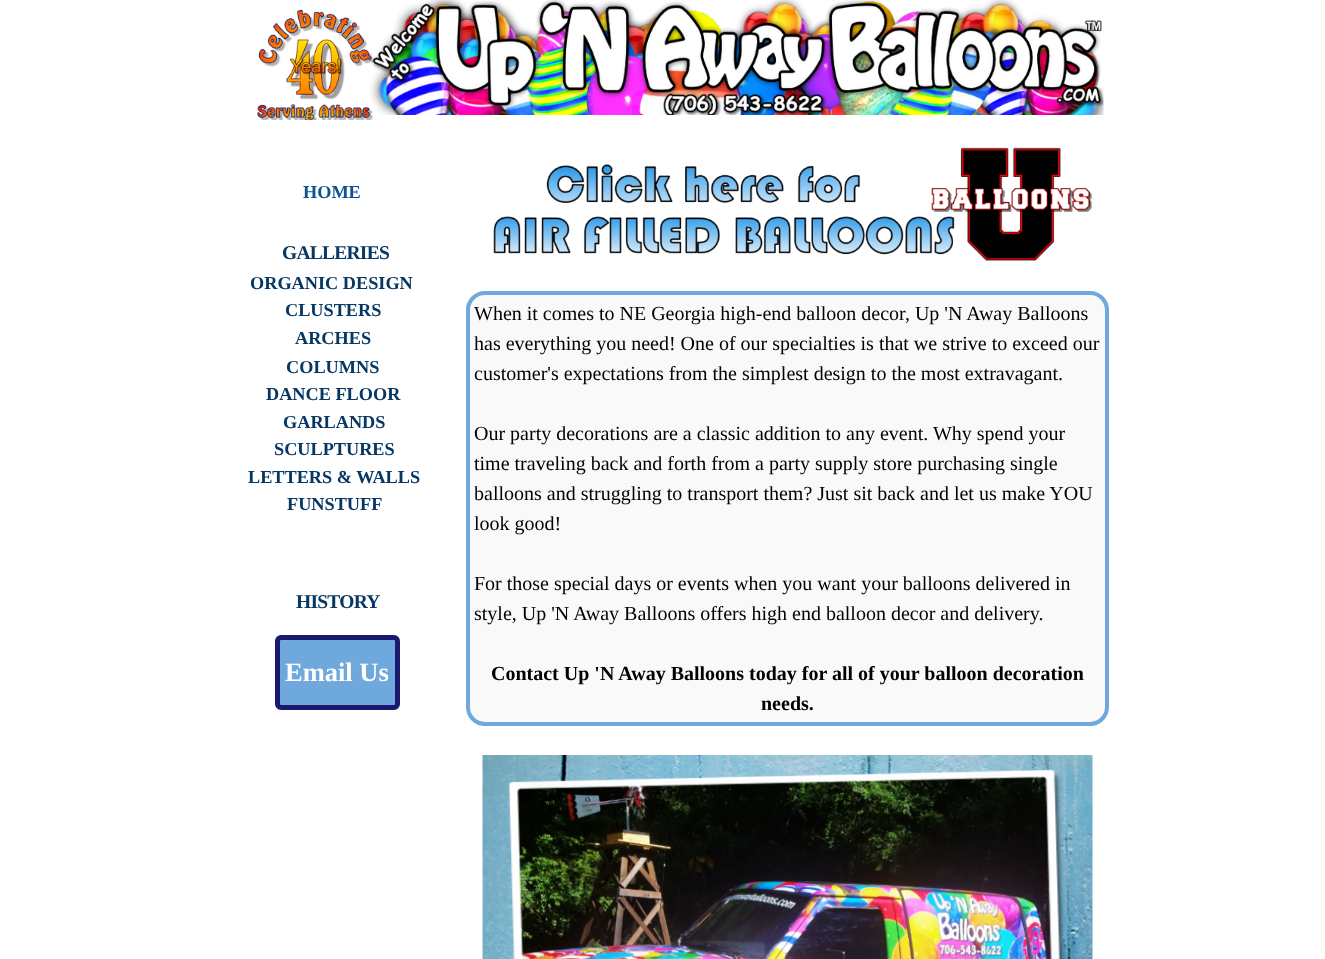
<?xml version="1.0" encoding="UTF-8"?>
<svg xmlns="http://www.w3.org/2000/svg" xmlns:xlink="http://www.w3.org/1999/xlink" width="1325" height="959">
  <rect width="100%" height="100%" fill="#ffffff" />
  <image x="257" y="9" width="118" height="111" xlink:href="image1.png" />
  <image x="370" y="0" width="734" height="115" xlink:href="image2.png" />
  <rect x="277.5" y="637.5" width="120" height="70" rx="3.5" fill="#6fa8dc" stroke="#191970" stroke-width="5" />
  <image x="493" y="147" width="599" height="114" xlink:href="image3.png" />
  <rect x="468" y="293" width="639" height="431" rx="17" fill="#f9f9f9" stroke="#6fa8dc" stroke-width="4" />
  <image x="482" y="755" width="611" height="204" xlink:href="image4.png" />
  <text x="303" y="198" style="font-family: Liberation Serif; font-size: 18.25px; font-weight: bold; fill: #0b5394">HOME</text>
  <text x="282" y="259" style="font-family: Liberation Serif; font-size: 19.5px; font-weight: bold; letter-spacing: -0.75px; fill: #073763">GALLERIES</text>
  <text x="250" y="289" style="font-family: Liberation Serif; font-size: 18.25px; font-weight: bold; fill: #073763">ORGANIC DESIGN</text>
  <text x="285" y="316" style="font-family: Liberation Serif; font-size: 18.25px; font-weight: bold; fill: #073763">CLUSTERS</text>
  <text x="295" y="344" style="font-family: Liberation Serif; font-size: 18.25px; font-weight: bold; fill: #073763">ARCHES</text>
  <text x="286" y="373" style="font-family: Liberation Serif; font-size: 18.25px; font-weight: bold; fill: #073763">COLUMNS</text>
  <text x="266" y="400" style="font-family: Liberation Serif; font-size: 18.25px; font-weight: bold; fill: #073763">DANCE FLOOR</text>
  <text x="283" y="428" style="font-family: Liberation Serif; font-size: 18.25px; font-weight: bold; fill: #073763">GARLANDS</text>
  <text x="274" y="455" style="font-family: Liberation Serif; font-size: 18.25px; font-weight: bold; fill: #073763">SCULPTURES</text>
  <text x="248" y="483" style="font-family: Liberation Serif; font-size: 18.25px; font-weight: bold; fill: #073763">LETTERS &amp; WALLS</text>
  <text x="287" y="510" style="font-family: Liberation Serif; font-size: 18.25px; font-weight: bold; fill: #073763">FUNSTUFF</text>
  <text x="296" y="608" style="font-family: Liberation Serif; font-size: 19.5px; font-weight: bold; letter-spacing: -0.75px; fill: #073763">HISTORY</text>
  <text x="285" y="681" style="font-family: Liberation Serif; font-size: 26.5px; font-weight: bold; fill: #ffffff">Email Us</text>
  <text x="474" y="320" style="font-family: Liberation Serif; font-size: 20px; fill: #000000">When it comes to NE Georgia high-end balloon decor, Up 'N Away Balloons</text>
  <text x="474" y="350" style="font-family: Liberation Serif; font-size: 20px; fill: #000000">has everything you need! One of our specialties is that we strive to exceed our</text>
  <text x="474" y="380" style="font-family: Liberation Serif; font-size: 20px; fill: #000000">customer's expectations from the simplest design to the most extravagant.</text>
  <text x="474" y="440" style="font-family: Liberation Serif; font-size: 20px; fill: #000000">Our party decorations are a classic addition to any event. Why spend your</text>
  <text x="474" y="470" style="font-family: Liberation Serif; font-size: 20px; fill: #000000">time traveling back and forth from a party supply store purchasing single</text>
  <text x="474" y="500" style="font-family: Liberation Serif; font-size: 20px; fill: #000000">balloons and struggling to transport them? Just sit back and let us make YOU</text>
  <text x="474" y="530" style="font-family: Liberation Serif; font-size: 20px; fill: #000000">look good!</text>
  <text x="474" y="590" style="font-family: Liberation Serif; font-size: 20px; fill: #000000">For those special days or events when you want your balloons delivered in</text>
  <text x="474" y="620" style="font-family: Liberation Serif; font-size: 20px; fill: #000000">style, Up 'N Away Balloons offers high end balloon decor and delivery.</text>
  <text x="491" y="680" style="font-family: Liberation Serif; font-size: 20px; font-weight: bold; fill: #000000">Contact Up 'N Away Balloons today for all of your balloon decoration</text>
  <text x="761" y="710" style="font-family: Liberation Serif; font-size: 20px; font-weight: bold; fill: #000000">needs.</text>
</svg>
